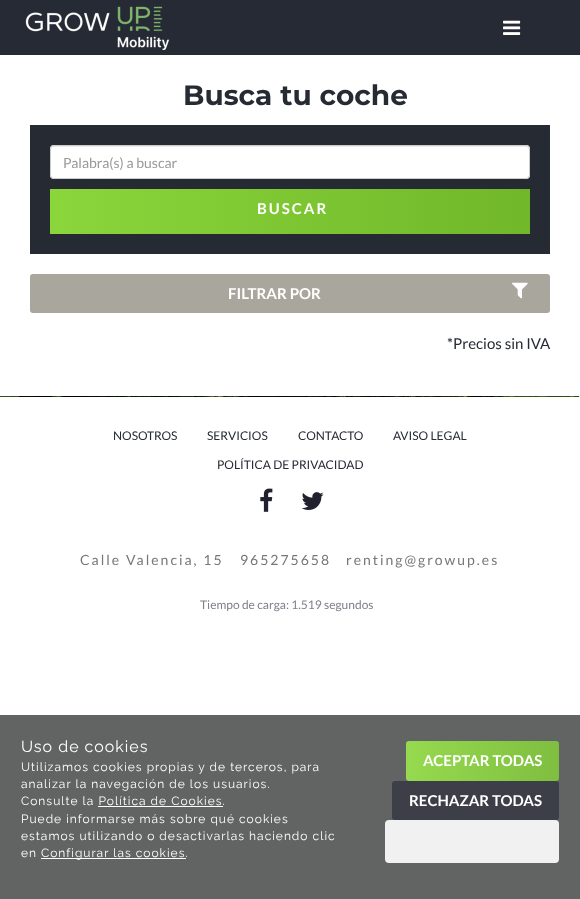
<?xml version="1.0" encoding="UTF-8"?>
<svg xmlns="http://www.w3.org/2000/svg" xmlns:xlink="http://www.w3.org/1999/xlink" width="580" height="899">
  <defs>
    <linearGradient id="g1" gradientUnits="userSpaceOnUse" x1="50" y1="212" x2="530" y2="211"><stop offset="0" stop-color="#8ad63b" /><stop offset="1" stop-color="#71b72a" /></linearGradient>
    <linearGradient id="g2" gradientUnits="userSpaceOnUse" x1="406" y1="761" x2="559" y2="761"><stop offset="0" stop-color="#96da4f" /><stop offset="1" stop-color="#7fbe3f" /></linearGradient>
  </defs>
  <rect width="100%" height="100%" fill="#ffffff" />
  <rect width="580" height="55" fill="#262a34" />
  <image x="25" y="6" width="145" height="44" xlink:href="image1.png" />
  <image x="503" y="20" width="18" height="15" xlink:href="image2.png" />
  <rect x="30" y="125" width="520" height="129" fill="#262a33" />
  <rect x="50" y="145" width="480" height="34" rx="4" fill="#ffffff" />
  <path d="M 54 147 h 472 c 2 0 3 1 3 3 v -2 l -2 -2 h -474 c -2 0 -2 2 -2 4 c 0 -2 1 -3 3 -3 z" fill="#ececec" />
  <rect x="50.5" y="145.5" width="479" height="33" rx="3.5" fill="none" stroke="#cccccc" />
  <rect x="50" y="189" width="480" height="45" fill="url(#g1)" />
  <rect x="30" y="274" width="520" height="39" rx="3" fill="#a9a69e" />
  <image x="512" y="282" width="16" height="17" xlink:href="image3.png" />
  <image x="0" y="396" width="580" height="1" xlink:href="image4.png" />
  <image x="260" y="488" width="13" height="24" xlink:href="image5.png" />
  <image x="301" y="492" width="23" height="18" xlink:href="image6.png" />
  <rect y="715" width="580" height="184" fill="#626363" />
  <rect x="98" y="806" width="125" height="1" fill="#ffffff" />
  <rect x="41" y="858" width="145" height="1" fill="#ffffff" />
  <rect x="406" y="741" width="153" height="40" rx="3" fill="url(#g2)" />
  <rect x="392" y="781" width="167" height="39" rx="3" fill="#3c3f47" />
  <rect x="385" y="820" width="174" height="43" rx="4" fill="#f1f1f1" />
  <text x="183" y="105" style="font-family: Montserrat; font-size: 28px; font-weight: bold; fill: #262a33">Busca tu coche</text>
  <text x="63" y="168" style="font-family: Lato; font-size: 14px; fill: #999999">Palabra(s) a buscar</text>
  <text x="257" y="214" style="font-family: Lato; font-size: 15px; font-weight: bold; letter-spacing: 2px; fill: #ffffff">BUSCAR</text>
  <text x="228" y="299" style="font-family: Lato; font-size: 15px; font-weight: bold; fill: #ffffff">FILTRAR POR</text>
  <text x="447" y="349" style="font-family: Lato; font-size: 15px; fill: #262a33">*Precios sin IVA</text>
  <text x="113" y="440" style="font-family: Lato; font-size: 12px; fill: #262a33">NOSOTROS</text>
  <text x="207" y="440" style="font-family: Lato; font-size: 12px; fill: #262a33">SERVICIOS</text>
  <text x="298" y="440" style="font-family: Lato; font-size: 12px; fill: #262a33">CONTACTO</text>
  <text x="393" y="440" style="font-family: Lato; font-size: 12px; fill: #262a33">AVISO LEGAL</text>
  <text x="217" y="469" style="font-family: Lato; font-size: 12px; fill: #262a33">POLÍTICA DE PRIVACIDAD</text>
  <text x="80" y="565" style="font-family: Lato; font-size: 14px; letter-spacing: 2px; fill: #777777">Calle Valencia, 15</text>
  <text x="240" y="565" style="font-family: Lato; font-size: 14px; letter-spacing: 2px; fill: #777777">965275658</text>
  <text x="346" y="565" style="font-family: Lato; font-size: 14px; letter-spacing: 2px; fill: #777777">renting@growup.es</text>
  <text x="200" y="609" style="font-family: Lato; font-size: 12px; fill: #7e818b">Tiempo de carga: 1.519 segundos</text>
  <text x="21" y="752" style="font-family: Raleway; font-size: 16px; letter-spacing: 1px; fill: #ffffff">Uso de cookies</text>
  <text x="21" y="771" style="font-family: Raleway; font-size: 12px; letter-spacing: 1px; fill: #ffffff">Utilizamos cookies propias y de terceros, para</text>
  <text x="21" y="788" style="font-family: Raleway; font-size: 12px; letter-spacing: 1px; fill: #ffffff">analizar la navegación de los usuarios.</text>
  <text x="21" y="805" style="font-family: Raleway; font-size: 12px; letter-spacing: 1px; fill: #ffffff">Consulte la Política de Cookies.</text>
  <text x="21" y="823" style="font-family: Raleway; font-size: 12px; letter-spacing: 1px; fill: #ffffff">Puede informarse más sobre qué cookies</text>
  <text x="21" y="840" style="font-family: Raleway; font-size: 12px; letter-spacing: 1px; fill: #ffffff">estamos utilizando o desactivarlas haciendo clic</text>
  <text x="21" y="857" style="font-family: Raleway; font-size: 12px; letter-spacing: 1px; fill: #ffffff">en</text>
  <text x="41" y="857" style="font-family: Raleway; font-size: 12px; letter-spacing: 1px; fill: #ffffff">Configurar las cookies.</text>
  <text x="423" y="766" style="font-family: Lato; font-size: 15px; font-weight: bold; fill: #ffffff">ACEPTAR TODAS</text>
  <text x="409" y="806" style="font-family: Lato; font-size: 15px; font-weight: bold; fill: #ffffff">RECHAZAR TODAS</text>
</svg>
